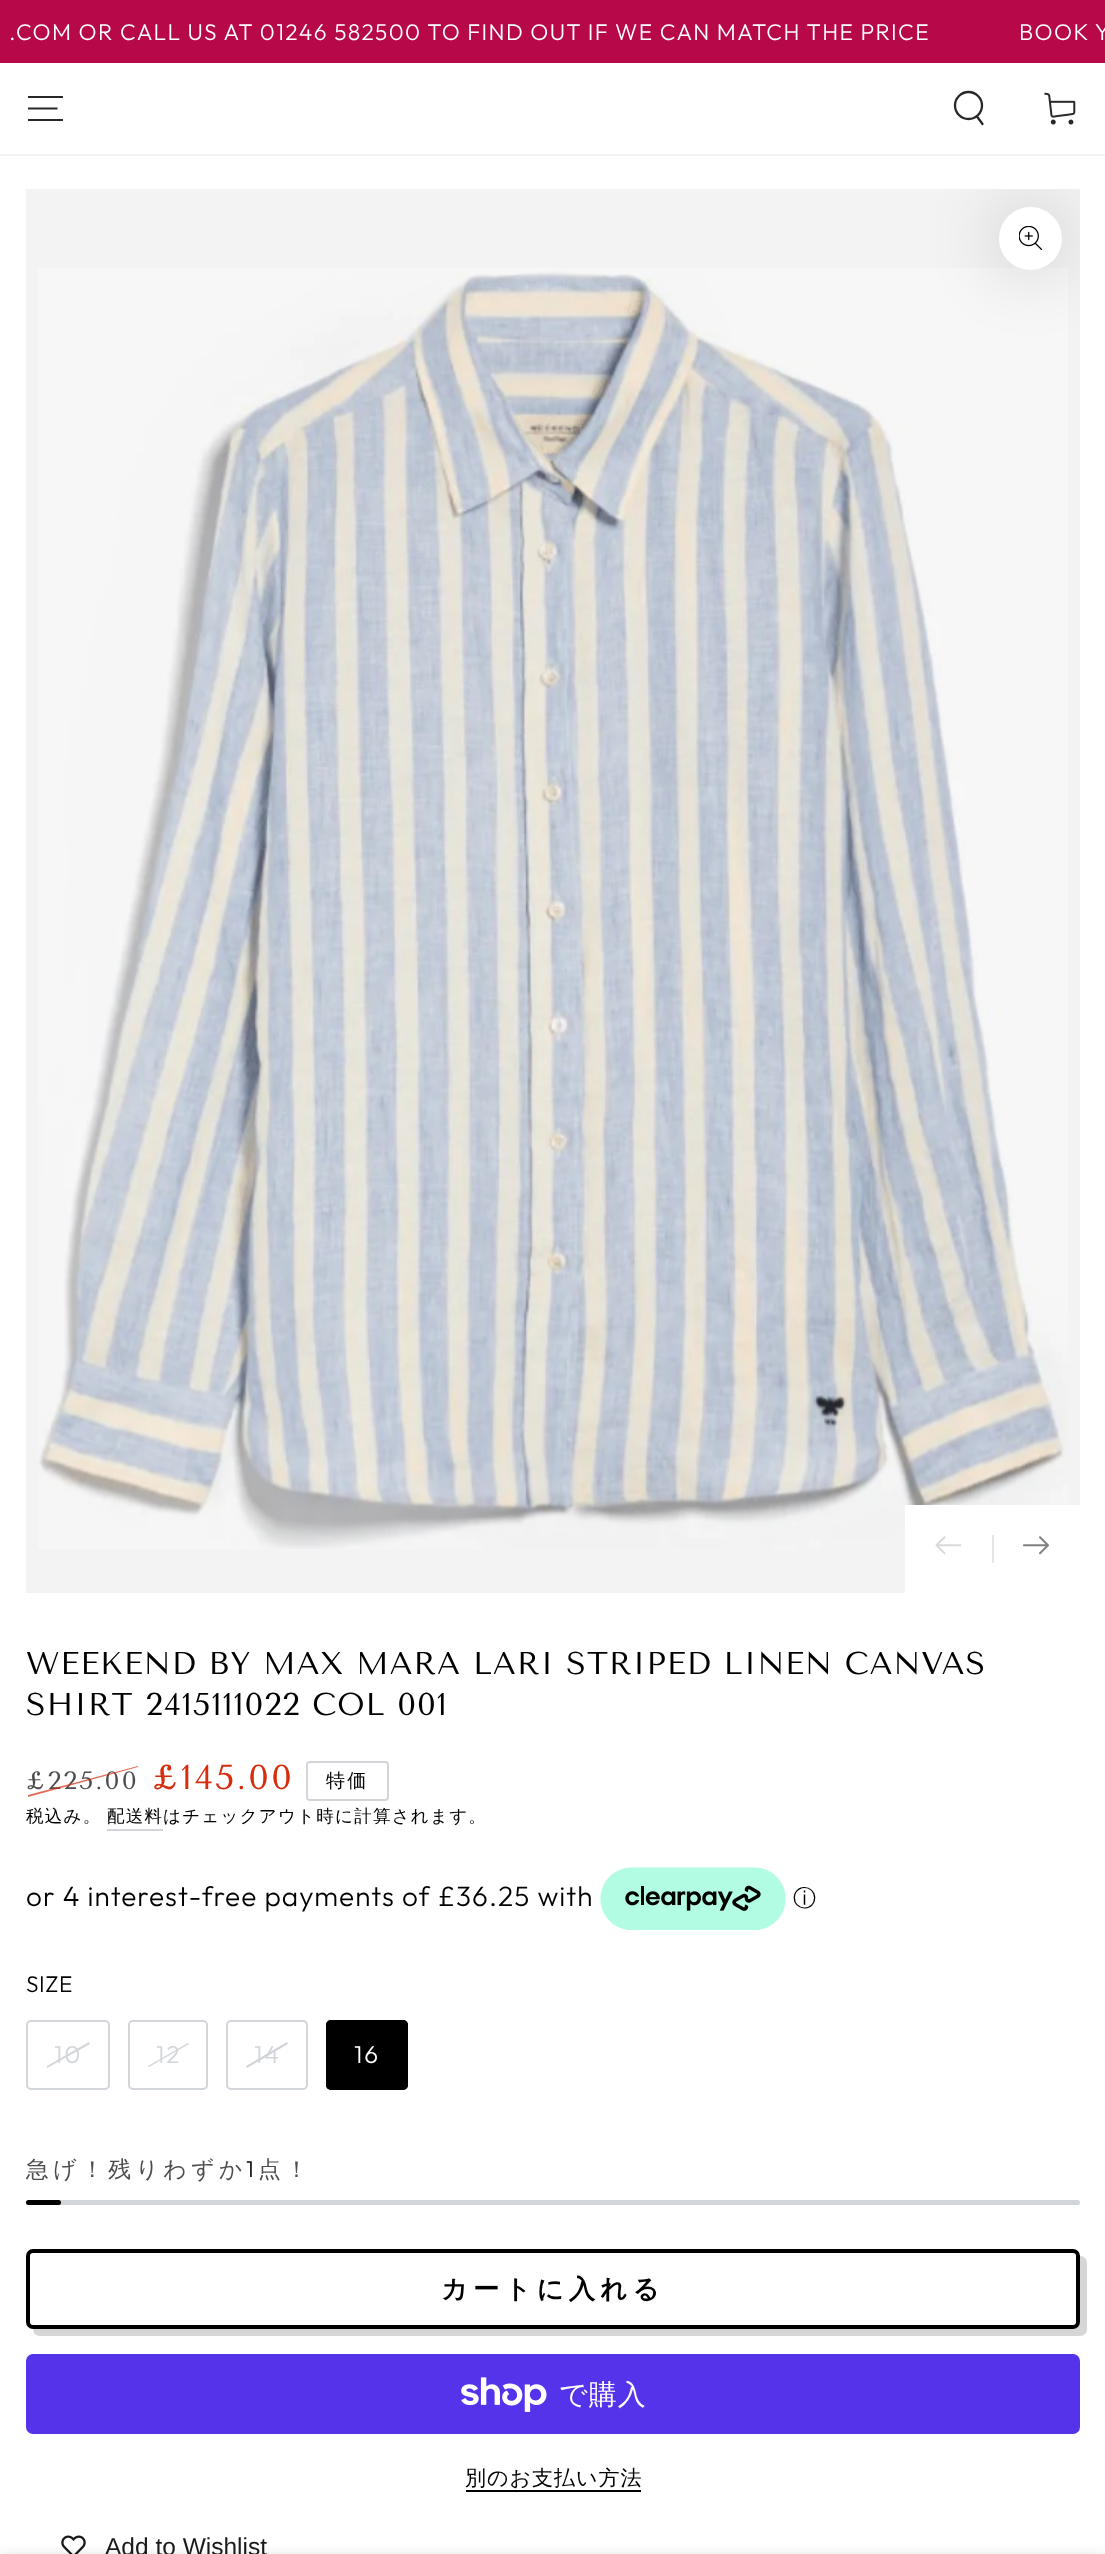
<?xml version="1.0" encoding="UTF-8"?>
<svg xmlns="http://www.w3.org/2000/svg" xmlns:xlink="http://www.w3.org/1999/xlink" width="1105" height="2554">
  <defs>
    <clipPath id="clip1"><rect x="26" y="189" width="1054" height="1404" /></clipPath>
  </defs>
  <rect width="100%" height="100%" fill="#ffffff" />
  <rect width="1105" height="63" fill="#b70849" />
  <rect x="26" y="189" width="1054" height="1404" fill="#f3f3f3" />
  <image x="38" y="268" width="1030" height="1281" xlink:href="image3.png" />
  <g clip-path="url(#clip1)">
    <rect x="999" y="207" width="63" height="63" rx="31.5" fill="#000000" fill-opacity="0.2" filter="blur(35px)" />
  </g>
  <rect y="154" width="1105" height="2" fill="#f2f2f4" />
  <path d="M 28 120 h 35 m -35 -11.5 h 29.5 m -29.5 -11.5 h 35" fill="none" stroke="#282828" stroke-width="2" />
  <circle cx="968.5" cy="105.5" r="13.5" fill="none" stroke="#282828" stroke-width="2.3" />
  <path d="M 977 116.5 l 5.5 7.5" fill="none" stroke="#282828" stroke-width="2.3" stroke-linecap="round" />
  <image x="1044" y="92" width="32" height="33" xlink:href="image1.png" />
  <circle cx="1030.5" cy="238.5" r="31.5" fill="#ffffff" />
  <image x="1019" y="226" width="24" height="24" xlink:href="image2.png" />
  <rect x="905" y="1505" width="175" height="88" fill="#ffffff" />
  <image x="935" y="1536" width="27" height="19" xlink:href="image4.png" />
  <rect x="992" y="1535" width="2" height="28" fill="#e6e6e6" />
  <image x="1023" y="1536" width="26" height="19" xlink:href="image5.png" />
  <rect x="307" y="1762" width="81" height="38" rx="3" fill="none" stroke="#d2d5d9" stroke-width="2" />
  <rect x="107" y="1829" width="56" height="2" fill="#d2d5d9" />
  <image x="600" y="1867" width="186" height="63" xlink:href="image6.png" />
  <rect x="27" y="2021" width="82" height="68" rx="4" fill="none" stroke="#d2d5d9" stroke-width="2" />
  <path d="M 47 2066 l 42 -24 l 1 2 l -43 24 z" fill="#d2d5d9" />
  <rect x="129" y="2021" width="78" height="68" rx="4" fill="none" stroke="#d2d5d9" stroke-width="2" />
  <path d="M 148 2066 l 40 -23 l 1 1 l -40 23 z" fill="#d2d5d9" />
  <rect x="227" y="2021" width="80" height="68" rx="4" fill="none" stroke="#d2d5d9" stroke-width="2" />
  <path d="M 246 2066 l 41 -24 l 1 2 l -41 24 z" fill="#d2d5d9" />
  <rect x="328" y="2022" width="78" height="66" rx="3" fill="none" stroke="#000000" stroke-width="4" />
  <rect x="326" y="2020" width="82" height="70" rx="5" fill="#000000" />
  <rect x="26" y="2200" width="1054" height="5" rx="2.5" fill="#d2d5d9" />
  <rect x="26" y="2200" width="35" height="5" rx="2.5" fill="#000000" />
  <path d="M 33 2329 c 0 4 3 7 7 7 h 1040 c 4 0 7 -3 7 -7 v -66 c 0 -4 -3 -7 -7 -7 v 66 c 0 4 -3 7 -7 7 z" fill="#d6d6d6" />
  <rect x="28" y="2251" width="1050" height="76" rx="5" fill="#ffffff" stroke="#000000" stroke-width="4" />
  <rect x="26" y="2354" width="1054" height="80" rx="7" fill="#5433eb" />
  <image x="461" y="2377" width="86" height="35" xlink:href="image7.png" />
  <rect x="466" y="2490" width="175" height="2" fill="#000000" />
  <image x="61" y="2535" width="25" height="19" xlink:href="image8.png" />
  <rect y="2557" width="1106" height="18" fill="#000000" fill-opacity="0.15" filter="blur(7px)" />
  <text x="9" y="40" style="font-family: Outfit; font-size: 22.75px; font-weight: 300; letter-spacing: 1.35px; fill: #ffffff">.COM OR CALL US AT 01246 582500 TO FIND OUT IF WE CAN MATCH THE PRICE</text>
  <text x="1019" y="40" style="font-family: Outfit; font-size: 22.75px; font-weight: 300; letter-spacing: 1.35px; fill: #ffffff">BOOK Y</text>
  <text x="26" y="1674" style="font-family: Tenor Sans; font-size: 31.5px; letter-spacing: 0.95px; fill: #000000">WEEKEND BY MAX MARA LARI STRIPED LINEN CANVAS</text>
  <text x="26" y="1715" style="font-family: Tenor Sans; font-size: 31.5px; letter-spacing: 0.95px; fill: #000000">SHIRT 2415111022 COL 001</text>
  <text x="26" y="1789" style="font-family: Tenor Sans; font-size: 25px; letter-spacing: 2.25px; fill: #4d4d4d">£225.00</text>
  <path d="M 28 1795 l 110 -29 v 1 l -110 30 z" fill="#d72c0d" fill-opacity="0.7" />
  <text x="152" y="1789" style="font-family: Tenor Sans; font-size: 34.5px; letter-spacing: 2.25px; fill: #d72c0d">£145.00</text>
  <text x="326" y="1787" style="font-family: WenQuanYi Zen Hei; font-size: 19px; font-weight: 500; letter-spacing: 2.25px; fill: #000000">特価</text>
  <text x="26" y="1822" style="font-family: WenQuanYi Zen Hei; font-size: 17.5px; font-weight: 500; letter-spacing: 1.25px; fill: #000000">税込み。</text>
  <text x="107" y="1822" style="font-family: WenQuanYi Zen Hei; font-size: 17.5px; font-weight: 500; letter-spacing: 1.25px; fill: #000000">配送料</text>
  <text x="163" y="1822" style="font-family: WenQuanYi Zen Hei; font-size: 17.5px; font-weight: 500; letter-spacing: 1.25px; fill: #000000">はチェックアウト時に計算されます。</text>
  <text x="26" y="1906" style="font-family: Outfit; font-size: 28px; font-weight: 300; letter-spacing: 1.05px; fill: #000000">or 4 interest-free payments of £36.25 with</text>
  <text x="793" y="1906" style="font-family: WenQuanYi Zen Hei; font-size: 23px; font-weight: 500; fill: #000000">ⓘ</text>
  <text x="26" y="1992" style="font-family: Outfit; font-size: 22.75px; font-weight: 300; letter-spacing: 0.5px; fill: #000000">SIZE</text>
  <text x="54" y="2063" style="font-family: Outfit; font-size: 24.5px; font-weight: 300; letter-spacing: 2px; fill: #d2d5d9">10</text>
  <text x="156" y="2063" style="font-family: Outfit; font-size: 24.5px; font-weight: 300; letter-spacing: 2px; fill: #d2d5d9">12</text>
  <text x="254" y="2063" style="font-family: Outfit; font-size: 24.5px; font-weight: 300; letter-spacing: 2px; fill: #d2d5d9">14</text>
  <text x="354" y="2063" style="font-family: Outfit; font-size: 24.5px; font-weight: 300; letter-spacing: 2px; fill: #ffffff">16</text>
  <text x="26" y="2177" style="font-family: WenQuanYi Zen Hei; font-size: 22.75px; font-weight: 500; letter-spacing: 4.5px; fill: #4d4d4d">急げ！残りわずか</text>
  <text x="246" y="2177" style="font-family: Outfit; font-size: 22.75px; font-weight: 300; letter-spacing: 4.5px; fill: #000000">1</text>
  <text x="258" y="2177" style="font-family: WenQuanYi Zen Hei; font-size: 22.75px; font-weight: 500; letter-spacing: 4.5px; fill: #4d4d4d">点！</text>
  <text x="441" y="2298" style="font-family: WenQuanYi Zen Hei; font-size: 26.25px; font-weight: bold; letter-spacing: 5.25px; fill: #000000">カートに入れる</text>
  <text x="559" y="2404" style="font-family: WenQuanYi Zen Hei; font-size: 28px; font-weight: 500; letter-spacing: 1.05px; fill: #ffffff">で購入</text>
  <text x="465" y="2485" style="font-family: WenQuanYi Zen Hei; font-size: 21px; font-weight: 500; letter-spacing: 1px; fill: #000000">別のお支払い方法</text>
  <text x="105" y="2555" style="font-family: Liberation Sans; font-size: 24.5px; fill: #1a1a1a">Add to Wishlist</text>
</svg>
